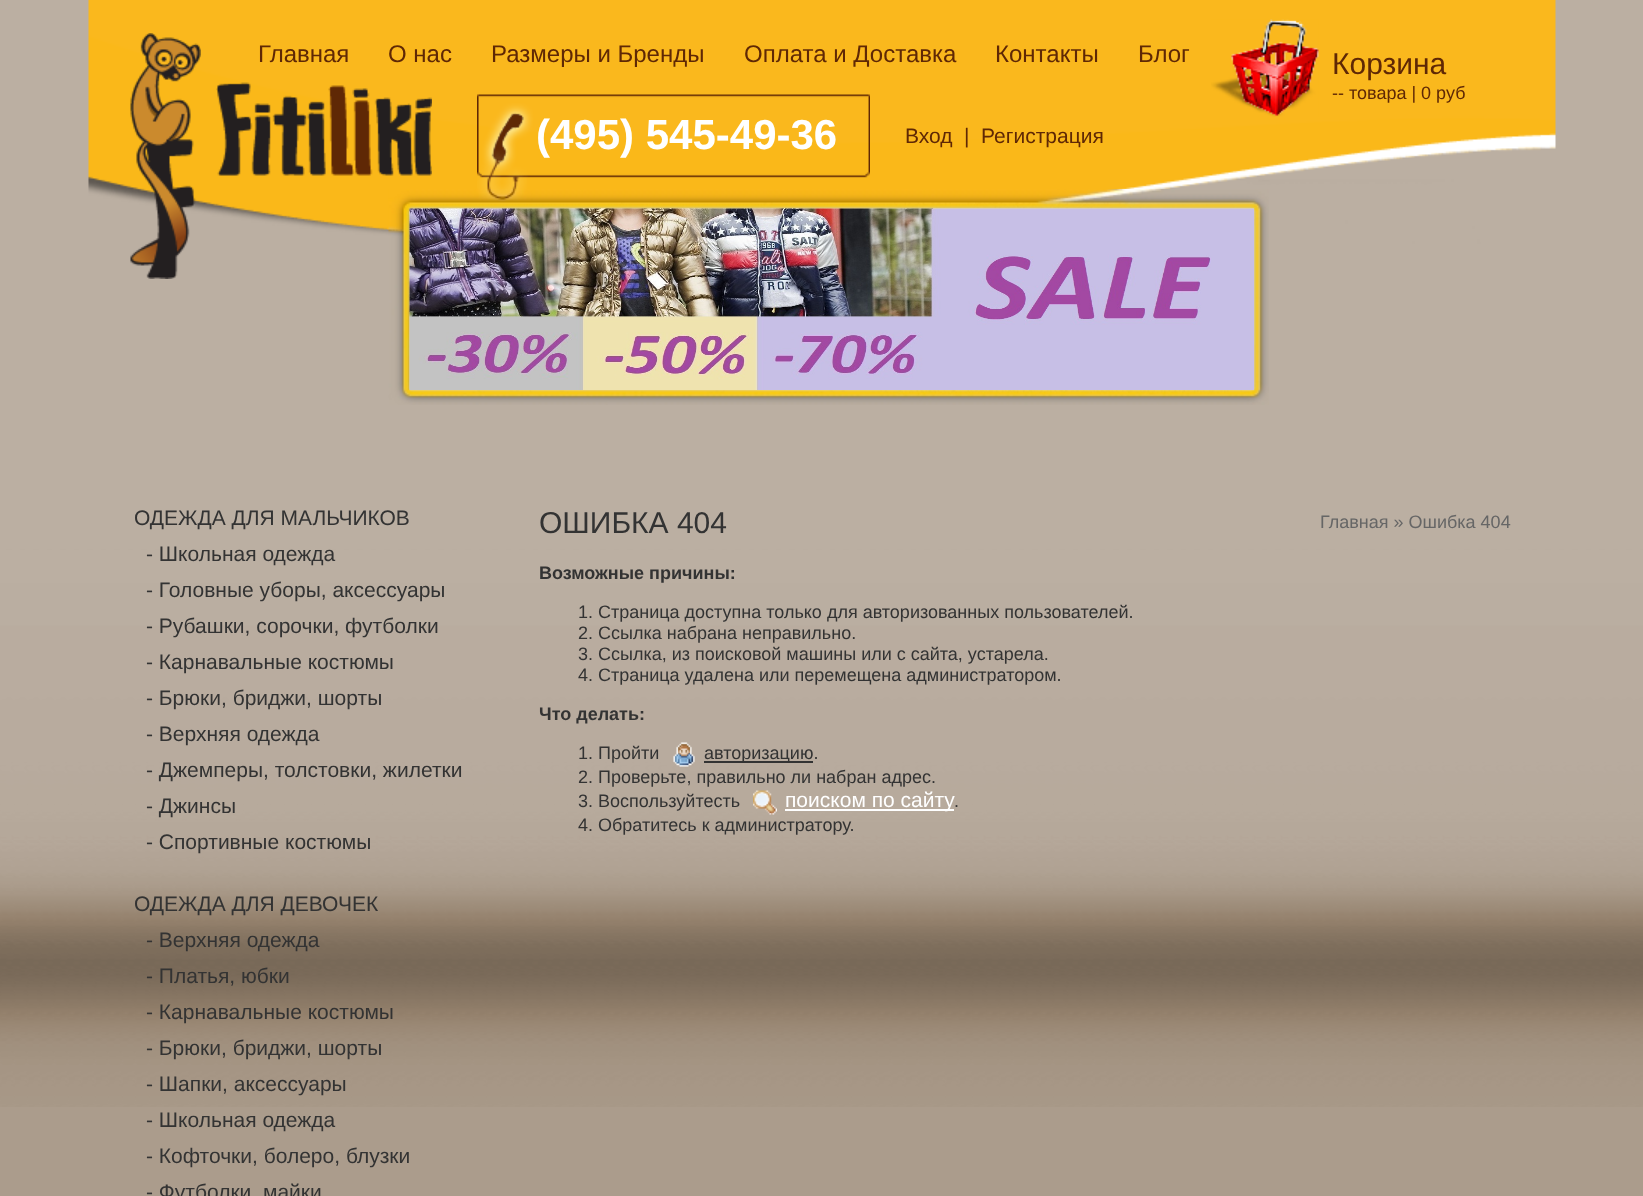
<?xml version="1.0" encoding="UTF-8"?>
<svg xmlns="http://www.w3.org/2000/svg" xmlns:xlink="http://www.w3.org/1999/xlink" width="1643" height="1196">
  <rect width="100%" height="100%" fill="#ab9c8c" />
  <image x="0" y="0" width="1643" height="1107" xlink:href="image1.png" />
  <image x="88" y="0" width="1468" height="244" xlink:href="image2.png" />
  <image x="130" y="33" width="71" height="246" xlink:href="image3.png" />
  <image x="1211" y="19" width="108" height="98" xlink:href="image4.png" />
  <image x="216" y="82" width="216" height="94" xlink:href="image5.png" />
  <image x="477" y="94" width="393" height="95" xlink:href="image6.png" />
  <image x="388" y="189" width="881" height="216" xlink:href="image7.png" />
  <image x="409" y="208" width="845" height="182" xlink:href="image8.png" />
  <image x="673" y="742" width="22" height="25" xlink:href="image9.png" />
  <rect x="704" y="761" width="109" height="2" fill="#333333" />
  <image x="753" y="790" width="24" height="25" xlink:href="image10.png" />
  <rect x="785" y="809" width="169" height="2" fill="#ffffff" />
  <text x="258" y="62" style="font-family: Liberation Sans; font-size: 24px; fill: #5f2805">Главная</text>
  <text x="388" y="62" style="font-family: Liberation Sans; font-size: 24px; fill: #5f2805">О нас</text>
  <text x="491" y="62" style="font-family: Liberation Sans; font-size: 24px; fill: #5f2805">Размеры и Бренды</text>
  <text x="744" y="62" style="font-family: Liberation Sans; font-size: 24px; fill: #5f2805">Оплата и Доставка</text>
  <text x="995" y="62" style="font-family: Liberation Sans; font-size: 24px; fill: #5f2805">Контакты</text>
  <text x="1138" y="62" style="font-family: Liberation Sans; font-size: 24px; fill: #5f2805">Блог</text>
  <text x="1332" y="74" style="font-family: Liberation Sans; font-size: 30px; fill: #5f2805">Корзина</text>
  <text x="1332" y="99" style="font-family: Liberation Sans; font-size: 18px; fill: #5f2805">-- товара | 0 руб</text>
  <text x="536" y="149" style="font-family: Liberation Sans; font-size: 42px; font-weight: bold; fill: #ffffff">(495) 545-49-36</text>
  <text x="905" y="143" style="font-family: Liberation Sans; font-size: 21px; fill: #5f2805">Вход</text>
  <text x="964" y="143" style="font-family: Liberation Sans; font-size: 21px; fill: #5f2805">|</text>
  <text x="981" y="143" style="font-family: Liberation Sans; font-size: 21px; fill: #5f2805">Регистрация</text>
  <text x="134" y="525" style="font-family: Liberation Sans; font-size: 21px; fill: #333333">ОДЕЖДА ДЛЯ МАЛЬЧИКОВ</text>
  <text x="146" y="561" style="font-family: Liberation Sans; font-size: 21px; fill: #333333">- Школьная одежда</text>
  <text x="146" y="597" style="font-family: Liberation Sans; font-size: 21px; fill: #333333">- Головные уборы, аксессуары</text>
  <text x="146" y="633" style="font-family: Liberation Sans; font-size: 21px; fill: #333333">- Рубашки, сорочки, футболки</text>
  <text x="146" y="669" style="font-family: Liberation Sans; font-size: 21px; fill: #333333">- Карнавальные костюмы</text>
  <text x="146" y="705" style="font-family: Liberation Sans; font-size: 21px; fill: #333333">- Брюки, бриджи, шорты</text>
  <text x="146" y="741" style="font-family: Liberation Sans; font-size: 21px; fill: #333333">- Верхняя одежда</text>
  <text x="146" y="777" style="font-family: Liberation Sans; font-size: 21px; fill: #333333">- Джемперы, толстовки, жилетки</text>
  <text x="146" y="813" style="font-family: Liberation Sans; font-size: 21px; fill: #333333">- Джинсы</text>
  <text x="146" y="849" style="font-family: Liberation Sans; font-size: 21px; fill: #333333">- Спортивные костюмы</text>
  <text x="134" y="911" style="font-family: Liberation Sans; font-size: 21px; fill: #333333">ОДЕЖДА ДЛЯ ДЕВОЧЕК</text>
  <text x="146" y="947" style="font-family: Liberation Sans; font-size: 21px; fill: #333333">- Верхняя одежда</text>
  <text x="146" y="983" style="font-family: Liberation Sans; font-size: 21px; fill: #333333">- Платья, юбки</text>
  <text x="146" y="1019" style="font-family: Liberation Sans; font-size: 21px; fill: #333333">- Карнавальные костюмы</text>
  <text x="146" y="1055" style="font-family: Liberation Sans; font-size: 21px; fill: #333333">- Брюки, бриджи, шорты</text>
  <text x="146" y="1091" style="font-family: Liberation Sans; font-size: 21px; fill: #333333">- Шапки, аксессуары</text>
  <text x="146" y="1127" style="font-family: Liberation Sans; font-size: 21px; fill: #333333">- Школьная одежда</text>
  <text x="146" y="1163" style="font-family: Liberation Sans; font-size: 21px; fill: #333333">- Кофточки, болеро, блузки</text>
  <text x="146" y="1199" style="font-family: Liberation Sans; font-size: 21px; fill: #333333">- Футболки, майки</text>
  <text x="539" y="533" style="font-family: Liberation Sans; font-size: 30px; fill: #333333">ОШИБКА 404</text>
  <text x="1320" y="528" style="font-family: Liberation Sans; font-size: 18px; fill: #666666">Главная » Ошибка 404</text>
  <text x="539" y="579" style="font-family: Liberation Sans; font-size: 18px; font-weight: bold; fill: #333333">Возможные причины:</text>
  <text x="578" y="618" style="font-family: Liberation Sans; font-size: 18px; fill: #333333">1. Страница доступна только для авторизованных пользователей.</text>
  <text x="578" y="639" style="font-family: Liberation Sans; font-size: 18px; fill: #333333">2. Ссылка набрана неправильно.</text>
  <text x="578" y="660" style="font-family: Liberation Sans; font-size: 18px; fill: #333333">3. Ссылка, из поисковой машины или с сайта, устарела.</text>
  <text x="578" y="681" style="font-family: Liberation Sans; font-size: 18px; fill: #333333">4. Страница удалена или перемещена администратором.</text>
  <text x="539" y="720" style="font-family: Liberation Sans; font-size: 18px; font-weight: bold; fill: #333333">Что делать:</text>
  <text x="578" y="759" style="font-family: Liberation Sans; font-size: 18px; fill: #333333">1. Пройти</text>
  <text x="704" y="759" style="font-family: Liberation Sans; font-size: 18px; fill: #333333">авторизацию.</text>
  <text x="578" y="783" style="font-family: Liberation Sans; font-size: 18px; fill: #333333">2. Проверьте, правильно ли набран адрес.</text>
  <text x="578" y="807" style="font-family: Liberation Sans; font-size: 18px; fill: #333333">3. Воспользуйтесть</text>
  <text x="785" y="807" style="font-family: Liberation Sans; font-size: 21px; fill: #ffffff">поиском по сайту</text>
  <text x="954" y="807" style="font-family: Liberation Sans; font-size: 18px; fill: #333333">.</text>
  <text x="578" y="831" style="font-family: Liberation Sans; font-size: 18px; fill: #333333">4. Обратитесь к администратору.</text>
</svg>
